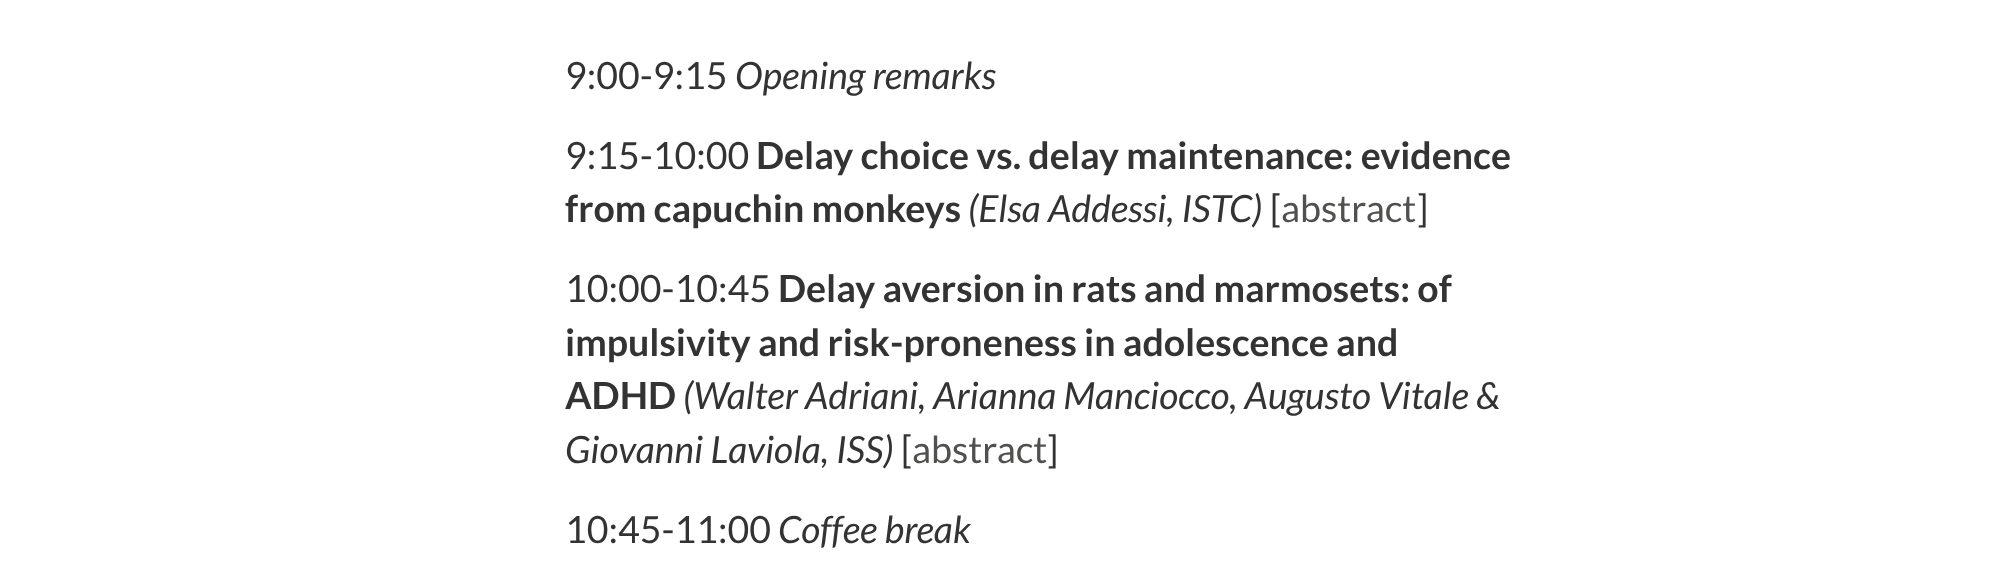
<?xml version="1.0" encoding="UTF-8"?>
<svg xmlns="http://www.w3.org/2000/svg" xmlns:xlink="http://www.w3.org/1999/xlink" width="1991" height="583">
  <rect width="100%" height="100%" fill="#ffffff" />
  <text x="565" y="89" style="font-family: Lato; font-size: 37.5px; fill: #333333">9:00-9:15</text>
  <text x="735" y="89" style="font-family: Lato; font-size: 37.5px; font-style: italic; fill: #333333">Opening remarks</text>
  <text x="565" y="169" style="font-family: Lato; font-size: 37.5px; fill: #333333">9:15-10:00</text>
  <text x="756" y="169" style="font-family: Lato; font-size: 37.5px; font-weight: bold; fill: #333333">Delay choice vs. delay maintenance: evidence</text>
  <text x="565" y="222" style="font-family: Lato; font-size: 37.5px; font-weight: bold; fill: #333333">from capuchin monkeys</text>
  <text x="968" y="222" style="font-family: Lato; font-size: 37.5px; font-style: italic; fill: #333333">(Elsa Addessi, ISTC)</text>
  <text x="1270" y="222" style="font-family: Lato; font-size: 37.5px; fill: #333333">[</text>
  <text x="1281" y="222" style="font-family: Lato; font-size: 37.5px; fill: #50514f">abstract</text>
  <text x="1417" y="222" style="font-family: Lato; font-size: 37.5px; fill: #333333">]</text>
  <text x="565" y="302" style="font-family: Lato; font-size: 37.5px; fill: #333333">10:00-10:45</text>
  <text x="778" y="302" style="font-family: Lato; font-size: 37.5px; font-weight: bold; fill: #333333">Delay aversion in rats and marmosets: of</text>
  <text x="565" y="356" style="font-family: Lato; font-size: 37.5px; font-weight: bold; fill: #333333">impulsivity and risk-proneness in adolescence and</text>
  <text x="565" y="409" style="font-family: Lato; font-size: 37.5px; font-weight: bold; fill: #333333">ADHD</text>
  <text x="683" y="409" style="font-family: Lato; font-size: 37.5px; font-style: italic; fill: #333333">(Walter Adriani, Arianna Manciocco, Augusto Vitale &amp;</text>
  <text x="565" y="463" style="font-family: Lato; font-size: 37.5px; font-style: italic; fill: #333333">Giovanni Laviola, ISS)</text>
  <text x="901" y="463" style="font-family: Lato; font-size: 37.5px; fill: #333333">[</text>
  <text x="912" y="463" style="font-family: Lato; font-size: 37.5px; fill: #50514f">abstract</text>
  <text x="1047" y="463" style="font-family: Lato; font-size: 37.5px; fill: #333333">]</text>
  <text x="565" y="543" style="font-family: Lato; font-size: 37.5px; fill: #333333">10:45-11:00</text>
  <text x="778" y="543" style="font-family: Lato; font-size: 37.5px; font-style: italic; fill: #333333">Coffee break</text>
</svg>
